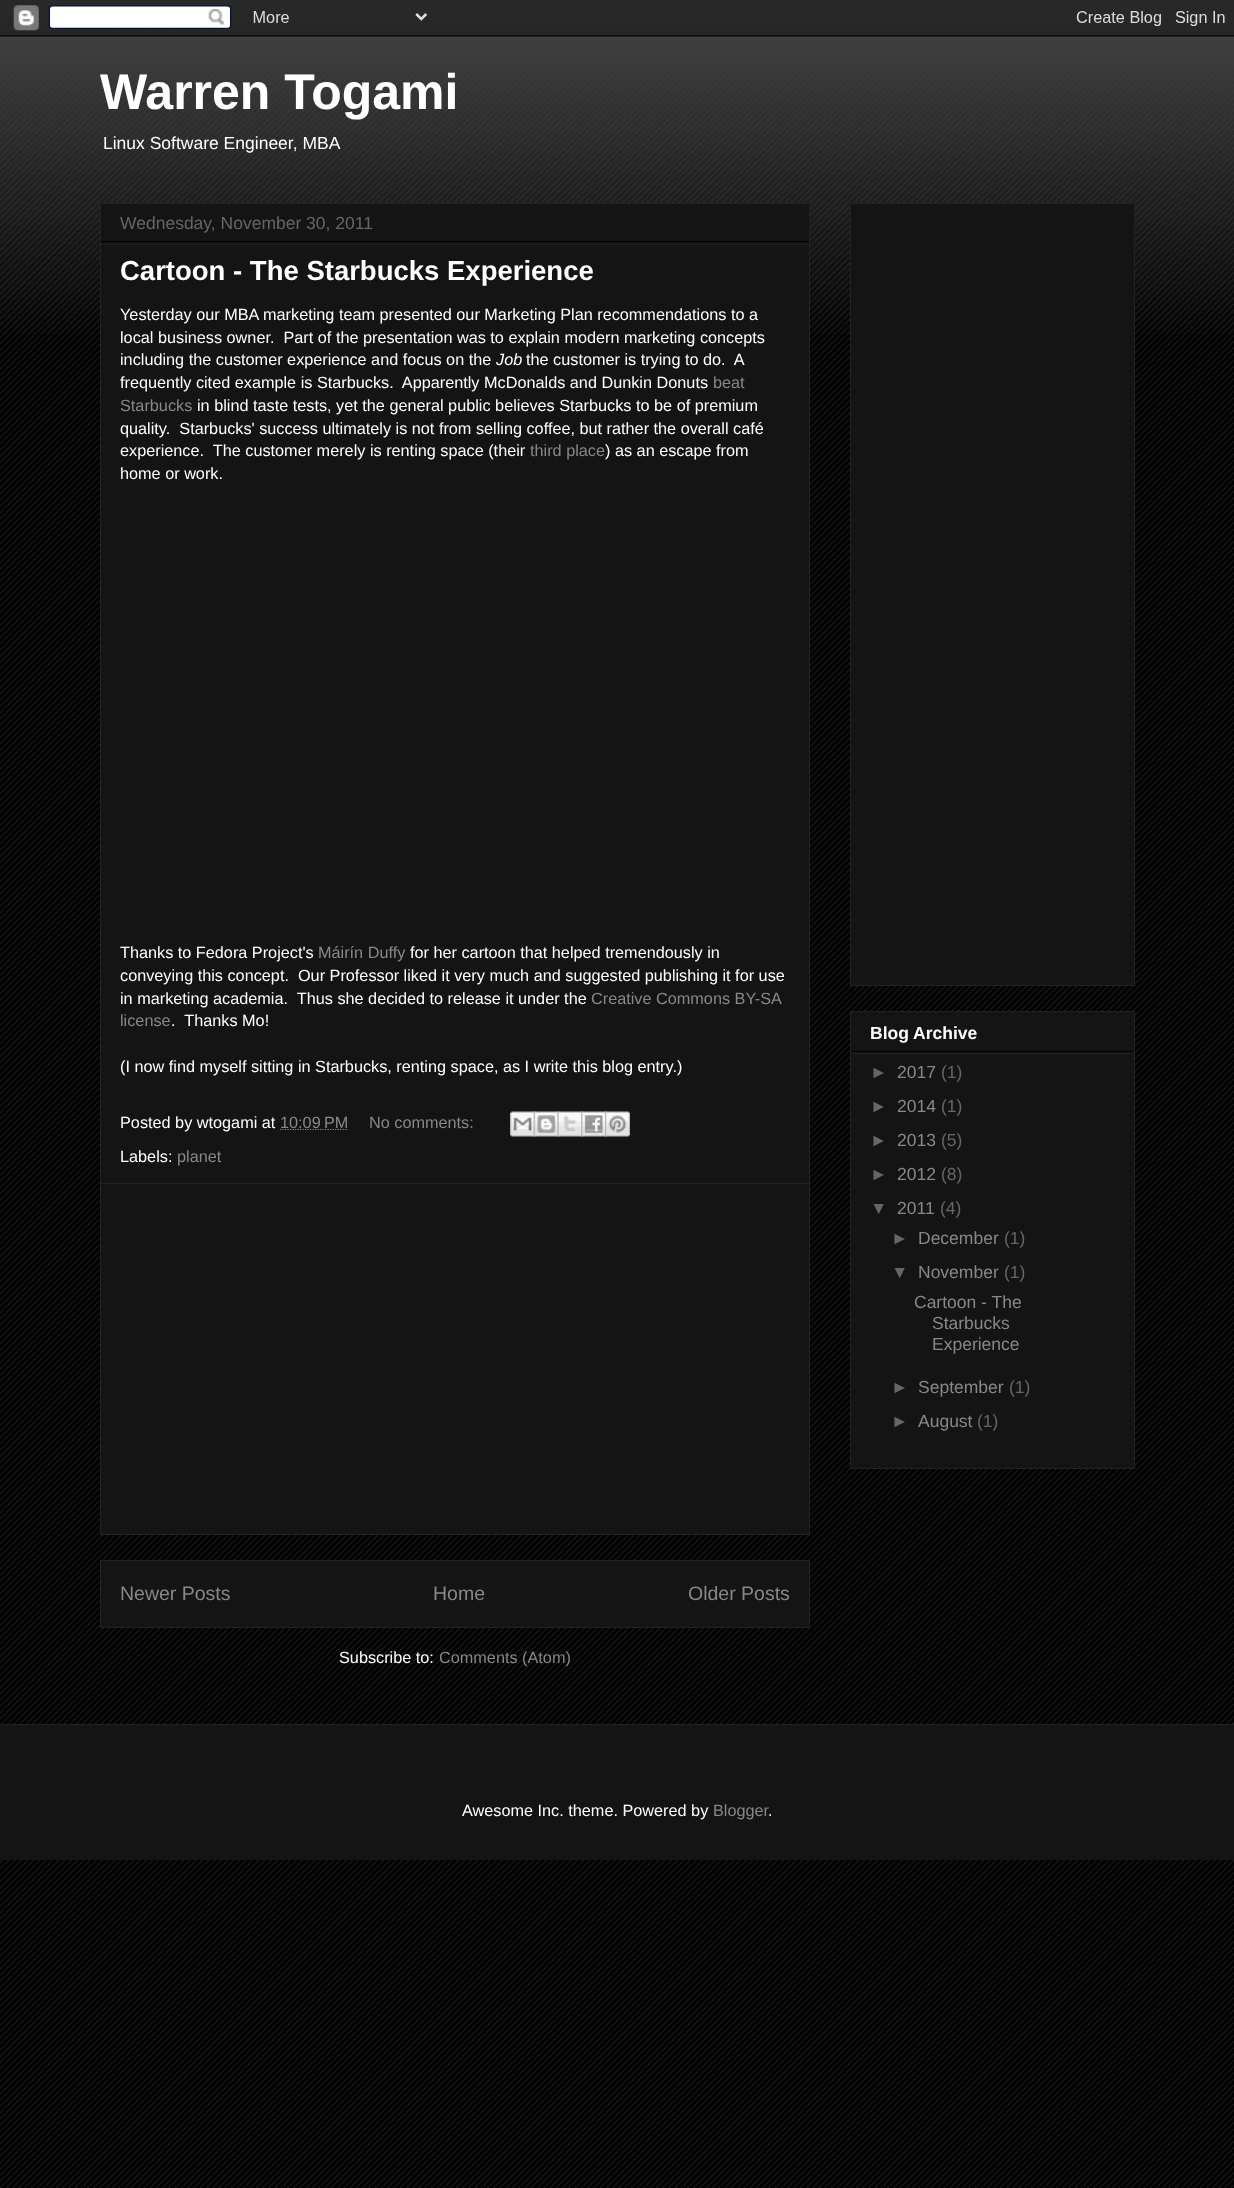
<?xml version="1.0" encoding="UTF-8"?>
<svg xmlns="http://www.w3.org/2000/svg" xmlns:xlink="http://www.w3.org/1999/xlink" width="1234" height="2188">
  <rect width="100%" height="100%" fill="#000000" />
  <image x="0" y="15" width="1234" height="2173" xlink:href="image1.png" />
  <image x="0" y="0" width="1234" height="334" xlink:href="image2.png" />
  <image x="0" y="0" width="1234" height="37" xlink:href="image3.png" />
  <rect x="100.5" y="203.5" width="709" height="1331" fill="#141414" stroke="#222222" />
  <rect x="101" y="241" width="708" height="1" fill="#000000" />
  <rect x="101" y="244" width="708" height="1" fill="#222222" />
  <path d="M 280 1129.5 h 68" fill="none" stroke="#888888" stroke-width="1.2" stroke-dasharray="1.25 1.25" />
  <image x="510" y="1111" width="25" height="26" xlink:href="image4.png" />
  <image x="533" y="1111" width="26" height="26" xlink:href="image5.png" />
  <image x="557" y="1111" width="26" height="26" xlink:href="image6.png" />
  <image x="581" y="1111" width="26" height="26" xlink:href="image7.png" />
  <image x="605" y="1111" width="25" height="26" xlink:href="image8.png" />
  <rect x="101" y="1183" width="708" height="1" fill="#222222" />
  <rect x="100.5" y="1560.5" width="709" height="67" fill="#141414" stroke="#222222" />
  <rect x="850.5" y="203.5" width="284" height="782" fill="#141414" stroke="#222222" />
  <rect x="850.5" y="1011.5" width="284" height="457" fill="#141414" stroke="#222222" />
  <rect x="851" y="1051" width="283" height="1" fill="#000000" />
  <rect x="851" y="1053" width="283" height="1" fill="#222222" />
  <rect y="1725" width="1234" height="135" fill="#141414" />
  <rect y="1724" width="1234" height="1" fill="#222222" />
  <text x="100" y="109" style="font-family: Liberation Sans; font-size: 50px; font-weight: bold; fill: #ffffff">Warren Togami</text>
  <text x="103" y="149" style="font-family: Liberation Sans; font-size: 17.5px; fill: #ffffff">Linux Software Engineer, MBA</text>
  <text x="120" y="229" style="font-family: Liberation Sans; font-size: 17.5px; fill: #666666">Wednesday, November 30, 2011</text>
  <text x="120" y="280" style="font-family: Liberation Sans; font-size: 27.5px; font-weight: bold; fill: #ffffff">Cartoon - The Starbucks Experience</text>
  <text x="120" y="320" style="font-family: Liberation Sans; font-size: 16.25px; fill: #ffffff">Yesterday our MBA marketing team presented our Marketing Plan recommendations to a</text>
  <text x="120" y="343" style="font-family: Liberation Sans; font-size: 16.25px; fill: #ffffff" xml:space="preserve">local business owner.  Part of the presentation was to explain modern marketing concepts</text>
  <text x="120" y="365" style="font-family: Liberation Sans; font-size: 16.25px; fill: #ffffff">including the customer experience and focus on the</text>
  <text x="496" y="365" style="font-family: Liberation Sans; font-size: 16.25px; font-style: italic; fill: #ffffff">Job</text>
  <text x="526" y="365" style="font-family: Liberation Sans; font-size: 16.25px; fill: #ffffff" xml:space="preserve">the customer is trying to do.  A</text>
  <text x="120" y="388" style="font-family: Liberation Sans; font-size: 16.25px; fill: #ffffff" xml:space="preserve">frequently cited example is Starbucks.  Apparently McDonalds and Dunkin Donuts</text>
  <text x="713" y="388" style="font-family: Liberation Sans; font-size: 16.25px; fill: #888888">beat</text>
  <text x="120" y="411" style="font-family: Liberation Sans; font-size: 16.25px; fill: #888888">Starbucks</text>
  <text x="197" y="411" style="font-family: Liberation Sans; font-size: 16.25px; fill: #ffffff">in blind taste tests, yet the general public believes Starbucks to be of premium</text>
  <text x="120" y="434" style="font-family: Liberation Sans; font-size: 16.25px; fill: #ffffff" xml:space="preserve">quality.  Starbucks' success ultimately is not from selling coffee, but rather the overall café</text>
  <text x="120" y="456" style="font-family: Liberation Sans; font-size: 16.25px; fill: #ffffff" xml:space="preserve">experience.  The customer merely is renting space (their</text>
  <text x="530" y="456" style="font-family: Liberation Sans; font-size: 16.25px; fill: #888888">third place</text>
  <text x="605" y="456" style="font-family: Liberation Sans; font-size: 16.25px; fill: #ffffff">) as an escape from</text>
  <text x="120" y="479" style="font-family: Liberation Sans; font-size: 16.25px; fill: #ffffff">home or work.</text>
  <text x="120" y="958" style="font-family: Liberation Sans; font-size: 16.25px; fill: #ffffff">Thanks to Fedora Project's</text>
  <text x="318" y="958" style="font-family: Liberation Sans; font-size: 16.25px; fill: #888888">Máirín Duffy</text>
  <text x="410" y="958" style="font-family: Liberation Sans; font-size: 16.25px; fill: #ffffff">for her cartoon that helped tremendously in</text>
  <text x="120" y="981" style="font-family: Liberation Sans; font-size: 16.25px; fill: #ffffff" xml:space="preserve">conveying this concept.  Our Professor liked it very much and suggested publishing it for use</text>
  <text x="120" y="1004" style="font-family: Liberation Sans; font-size: 16.25px; fill: #ffffff" xml:space="preserve">in marketing academia.  Thus she decided to release it under the</text>
  <text x="591" y="1004" style="font-family: Liberation Sans; font-size: 16.25px; fill: #888888">Creative Commons BY-SA</text>
  <text x="120" y="1026" style="font-family: Liberation Sans; font-size: 16.25px; fill: #888888">license</text>
  <text x="171" y="1026" style="font-family: Liberation Sans; font-size: 16.25px; fill: #ffffff" xml:space="preserve">.  Thanks Mo!</text>
  <text x="120" y="1072" style="font-family: Liberation Sans; font-size: 16.25px; fill: #ffffff">(I now find myself sitting in Starbucks, renting space, as I write this blog entry.)</text>
  <text x="120" y="1128" style="font-family: Liberation Sans; font-size: 16.25px; fill: #ffffff">Posted by wtogami at</text>
  <text x="280" y="1128" style="font-family: Liberation Sans; font-size: 16.25px; fill: #888888">10:09 PM</text>
  <text x="369" y="1128" style="font-family: Liberation Sans; font-size: 16.25px; fill: #888888">No comments:</text>
  <text x="120" y="1162" style="font-family: Liberation Sans; font-size: 16.25px; fill: #ffffff">Labels:</text>
  <text x="177" y="1162" style="font-family: Liberation Sans; font-size: 16.25px; fill: #888888">planet</text>
  <text x="120" y="1600" style="font-family: Liberation Sans; font-size: 19.5px; fill: #888888">Newer Posts</text>
  <text x="433" y="1600" style="font-family: Liberation Sans; font-size: 19.5px; fill: #888888">Home</text>
  <text x="688" y="1600" style="font-family: Liberation Sans; font-size: 19.5px; fill: #888888">Older Posts</text>
  <text x="339" y="1663" style="font-family: Liberation Sans; font-size: 16.25px; fill: #ffffff">Subscribe to:</text>
  <text x="439" y="1663" style="font-family: Liberation Sans; font-size: 16.25px; fill: #888888">Comments (Atom)</text>
  <text x="870" y="1039" style="font-family: Liberation Sans; font-size: 17.5px; font-weight: bold; fill: #ffffff">Blog Archive</text>
  <text x="870" y="1078" style="font-family: Liberation Sans; font-size: 17.5px; fill: #666666">►</text>
  <text x="897" y="1078" style="font-family: Liberation Sans; font-size: 17.5px; fill: #888888">2017</text>
  <text x="941" y="1078" style="font-family: Liberation Sans; font-size: 17.5px; fill: #666666">(1)</text>
  <text x="870" y="1112" style="font-family: Liberation Sans; font-size: 17.5px; fill: #666666">►</text>
  <text x="897" y="1112" style="font-family: Liberation Sans; font-size: 17.5px; fill: #888888">2014</text>
  <text x="941" y="1112" style="font-family: Liberation Sans; font-size: 17.5px; fill: #666666">(1)</text>
  <text x="870" y="1146" style="font-family: Liberation Sans; font-size: 17.5px; fill: #666666">►</text>
  <text x="897" y="1146" style="font-family: Liberation Sans; font-size: 17.5px; fill: #888888">2013</text>
  <text x="941" y="1146" style="font-family: Liberation Sans; font-size: 17.5px; fill: #666666">(5)</text>
  <text x="870" y="1180" style="font-family: Liberation Sans; font-size: 17.5px; fill: #666666">►</text>
  <text x="897" y="1180" style="font-family: Liberation Sans; font-size: 17.5px; fill: #888888">2012</text>
  <text x="941" y="1180" style="font-family: Liberation Sans; font-size: 17.5px; fill: #666666">(8)</text>
  <text x="870" y="1214" style="font-family: Liberation Sans; font-size: 17.5px; fill: #666666">▼</text>
  <text x="897" y="1214" style="font-family: Liberation Sans; font-size: 17.5px; fill: #888888">2011</text>
  <text x="940" y="1214" style="font-family: Liberation Sans; font-size: 17.5px; fill: #666666">(4)</text>
  <text x="891" y="1244" style="font-family: Liberation Sans; font-size: 17.5px; fill: #666666">►</text>
  <text x="918" y="1244" style="font-family: Liberation Sans; font-size: 17.5px; fill: #888888">December</text>
  <text x="1004" y="1244" style="font-family: Liberation Sans; font-size: 17.5px; fill: #666666">(1)</text>
  <text x="891" y="1278" style="font-family: Liberation Sans; font-size: 17.5px; fill: #666666">▼</text>
  <text x="918" y="1278" style="font-family: Liberation Sans; font-size: 17.5px; fill: #888888">November</text>
  <text x="1004" y="1278" style="font-family: Liberation Sans; font-size: 17.5px; fill: #666666">(1)</text>
  <text x="914" y="1308" style="font-family: Liberation Sans; font-size: 17.5px; fill: #888888">Cartoon - The</text>
  <text x="932" y="1329" style="font-family: Liberation Sans; font-size: 17.5px; fill: #888888">Starbucks</text>
  <text x="932" y="1350" style="font-family: Liberation Sans; font-size: 17.5px; fill: #888888">Experience</text>
  <text x="891" y="1393" style="font-family: Liberation Sans; font-size: 17.5px; fill: #666666">►</text>
  <text x="918" y="1393" style="font-family: Liberation Sans; font-size: 17.5px; fill: #888888">September</text>
  <text x="1009" y="1393" style="font-family: Liberation Sans; font-size: 17.5px; fill: #666666">(1)</text>
  <text x="891" y="1427" style="font-family: Liberation Sans; font-size: 17.5px; fill: #666666">►</text>
  <text x="918" y="1427" style="font-family: Liberation Sans; font-size: 17.5px; fill: #888888">August</text>
  <text x="977" y="1427" style="font-family: Liberation Sans; font-size: 17.5px; fill: #666666">(1)</text>
  <text x="462" y="1816" style="font-family: Liberation Sans; font-size: 16.25px; fill: #ffffff">Awesome Inc. theme. Powered by</text>
  <text x="713" y="1816" style="font-family: Liberation Sans; font-size: 16.25px; fill: #888888">Blogger</text>
  <text x="768" y="1816" style="font-family: Liberation Sans; font-size: 16.25px; fill: #ffffff">.</text>
</svg>
